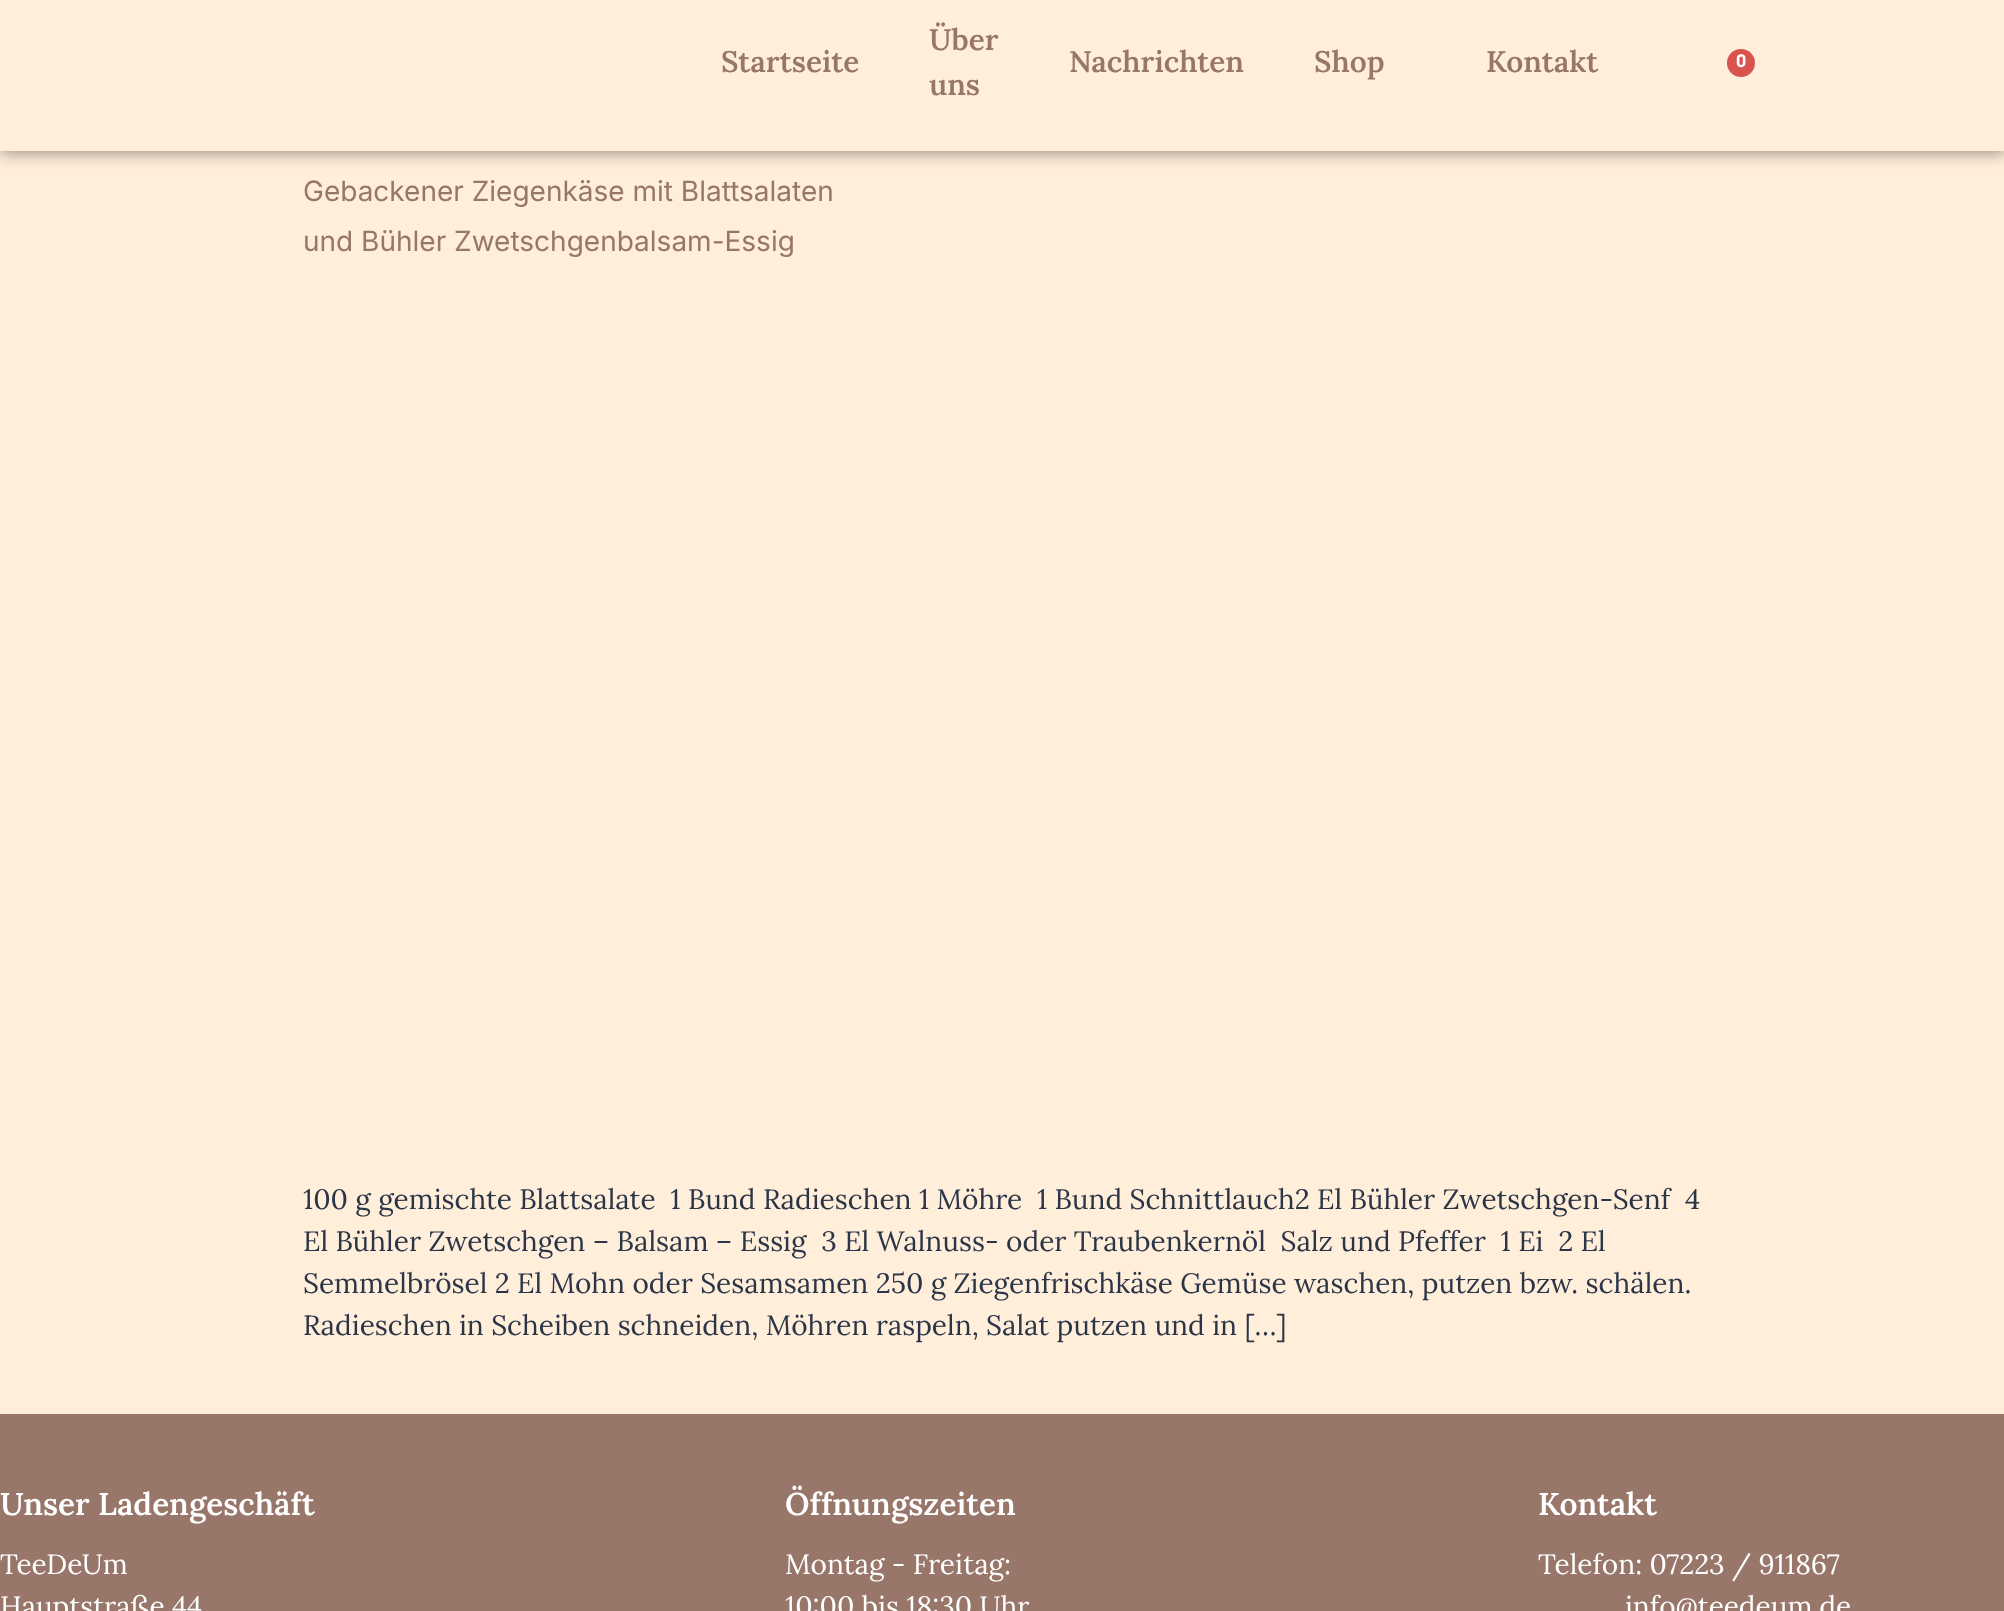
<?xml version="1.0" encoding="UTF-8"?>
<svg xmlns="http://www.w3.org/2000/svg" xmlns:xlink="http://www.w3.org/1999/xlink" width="2004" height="1611">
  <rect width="100%" height="100%" fill="#ffeeda" />
  <rect y="-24" width="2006" height="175" fill="#000000" fill-opacity="0.5" filter="blur(9px)" />
  <rect width="2004" height="151" fill="#ffeeda" />
  <circle cx="1741" cy="63" r="14" fill="#d9534f" />
  <rect y="1414" width="2004" height="197" fill="#987669" />
  <text x="721" y="72" style="font-family: Lora; font-size: 29.75px; font-weight: 600; fill: #987669">Startseite</text>
  <text x="929" y="50" style="font-family: Lora; font-size: 29.75px; font-weight: 600; fill: #987669">Über</text>
  <text x="929" y="95" style="font-family: Lora; font-size: 29.75px; font-weight: 600; fill: #987669">uns</text>
  <text x="1069" y="72" style="font-family: Lora; font-size: 29.75px; font-weight: 600; fill: #987669">Nachrichten</text>
  <text x="1314" y="72" style="font-family: Lora; font-size: 29.75px; font-weight: 600; fill: #987669">Shop</text>
  <text x="1486" y="72" style="font-family: Lora; font-size: 29.75px; font-weight: 600; fill: #987669">Kontakt</text>
  <text x="1736" y="67" style="font-family: Barlow; font-size: 18px; font-weight: bold; fill: #ffffff">0</text>
  <text x="303" y="201" style="font-family: Inter; font-size: 28px; fill: #987669">Gebackener Ziegenkäse mit Blattsalaten</text>
  <text x="303" y="251" style="font-family: Inter; font-size: 28px; fill: #987669">und Bühler Zwetschgenbalsam-Essig</text>
  <text x="303" y="1209" style="font-family: Lora; font-size: 28px; fill: #2b3547" xml:space="preserve">100 g gemischte Blattsalate  1 Bund Radieschen 1 Möhre  1 Bund Schnittlauch2 El Bühler Zwetschgen-Senf  4</text>
  <text x="303" y="1251" style="font-family: Lora; font-size: 28px; fill: #2b3547" xml:space="preserve">El Bühler Zwetschgen – Balsam – Essig  3 El Walnuss- oder Traubenkernöl  Salz und Pfeffer  1 Ei  2 El</text>
  <text x="303" y="1293" style="font-family: Lora; font-size: 28px; fill: #2b3547">Semmelbrösel 2 El Mohn oder Sesamsamen 250 g Ziegenfrischkäse Gemüse waschen, putzen bzw. schälen.</text>
  <text x="303" y="1335" style="font-family: Lora; font-size: 28px; fill: #2b3547">Radieschen in Scheiben schneiden, Möhren raspeln, Salat putzen und in […]</text>
  <text x="0" y="1515" style="font-family: Lora; font-size: 31.5px; font-weight: 600; fill: #ffffff">Unser Ladengeschäft</text>
  <text x="0" y="1574" style="font-family: Lora; font-size: 28px; fill: #ffffff">TeeDeUm</text>
  <text x="0" y="1616" style="font-family: Lora; font-size: 28px; fill: #ffffff">Hauptstraße 44</text>
  <text x="785" y="1515" style="font-family: Lora; font-size: 31.5px; font-weight: 600; fill: #ffffff">Öffnungszeiten</text>
  <text x="785" y="1574" style="font-family: Lora; font-size: 28px; fill: #ffffff">Montag - Freitag:</text>
  <text x="785" y="1616" style="font-family: Lora; font-size: 28px; fill: #ffffff">10:00 bis 18:30 Uhr</text>
  <text x="1538" y="1515" style="font-family: Lora; font-size: 31.5px; font-weight: 600; fill: #ffffff">Kontakt</text>
  <text x="1538" y="1574" style="font-family: Lora; font-size: 28px; fill: #ffffff">Telefon: 07223 / 911867</text>
  <text x="1625" y="1616" style="font-family: Lora; font-size: 28px; fill: #ffffff">info@teedeum.de</text>
</svg>
